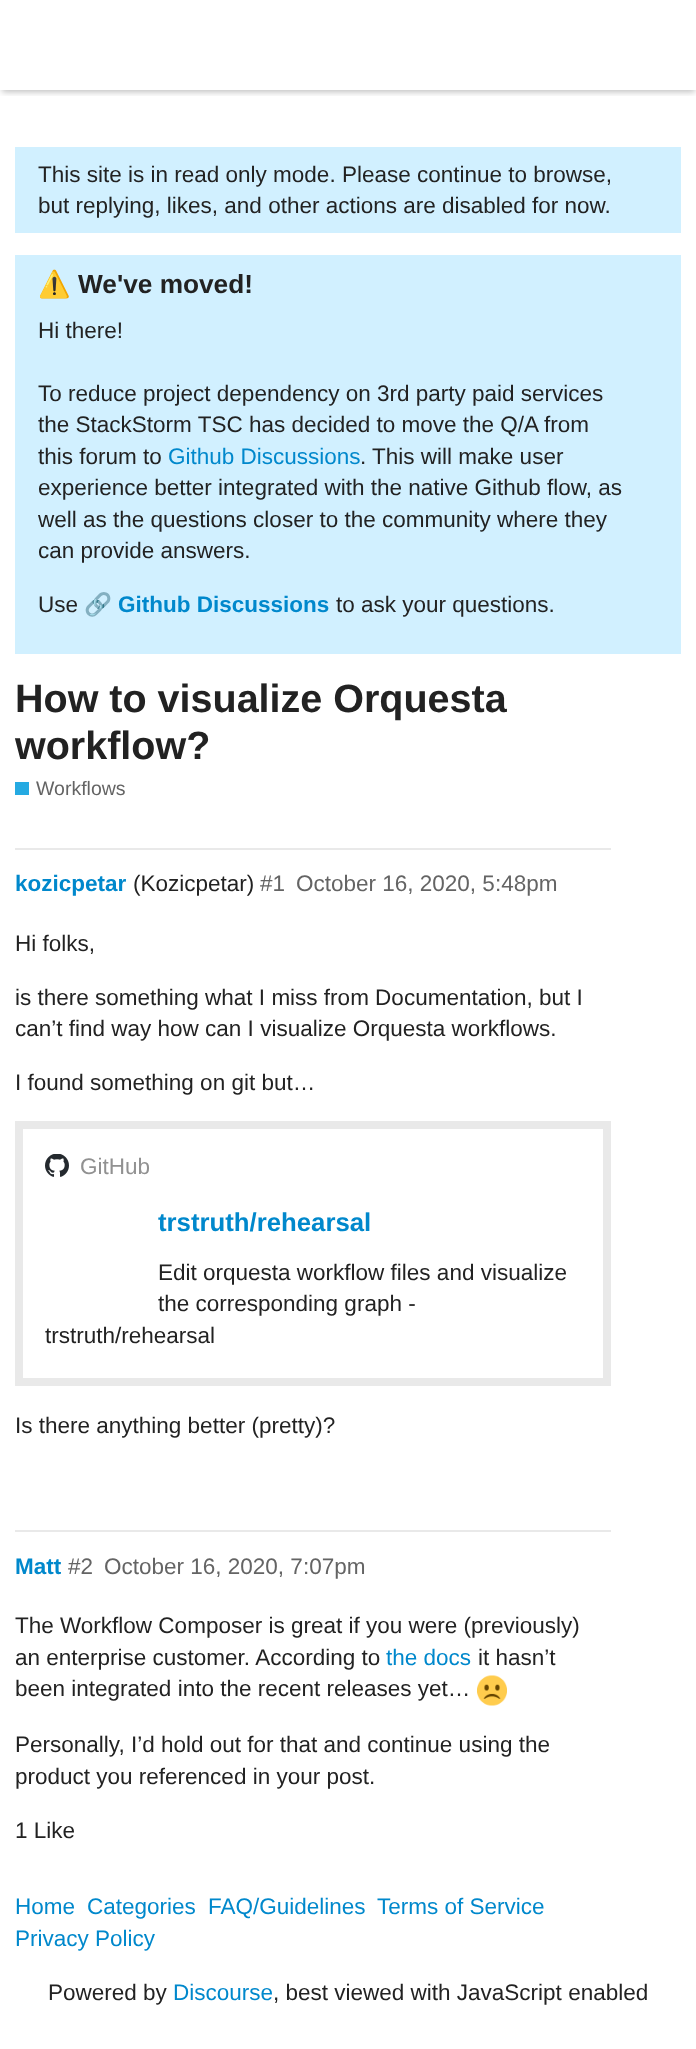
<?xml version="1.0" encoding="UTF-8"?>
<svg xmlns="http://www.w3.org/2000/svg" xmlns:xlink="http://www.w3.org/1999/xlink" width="696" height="2049">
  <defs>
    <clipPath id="clip1"><rect x="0" y="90" width="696" height="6" /></clipPath>
  </defs>
  <rect width="100%" height="100%" fill="#ffffff" />
  <g clip-path="url(#clip1)">
    <rect x="2" y="5" width="693" height="87" fill="#000000" fill-opacity="0.25" filter="blur(3px)" />
  </g>
  <rect x="15" y="147" width="666" height="86" fill="#d1f0ff" />
  <rect x="15" y="255" width="666" height="399" fill="#d1f0ff" />
  <rect x="15" y="782" width="14" height="13" fill="#25aae2" />
  <rect x="15" y="848" width="596" height="2" fill="#e9e9e9" />
  <rect x="19" y="1125" width="588" height="257" fill="none" stroke="#e9e9e9" stroke-width="8" />
  <image x="45" y="1154" width="24" height="23" xlink:href="image1.png" />
  <rect x="15" y="1530" width="596" height="2" fill="#e9e9e9" />
  <image x="477" y="1675" width="30" height="31" xlink:href="image2.png" />
  <text x="38" y="182" style="font-family: Liberation Sans; font-size: 22.5px; fill: #222222">This site is in read only mode. Please continue to browse,</text>
  <text x="38" y="213" style="font-family: Liberation Sans; font-size: 22.5px; fill: #222222">but replying, likes, and other actions are disabled for now.</text>
  <text x="38" y="293" style="font-family: Noto Color Emoji; font-size: 26.25px; font-weight: bold; fill: #222222">⚠️</text>
  <text x="78" y="293" style="font-family: Liberation Sans; font-size: 26.25px; font-weight: bold; fill: #222222">We've moved!</text>
  <text x="38" y="338" style="font-family: Liberation Sans; font-size: 22.5px; fill: #222222">Hi there!</text>
  <text x="38" y="401" style="font-family: Liberation Sans; font-size: 22.5px; fill: #222222">To reduce project dependency on 3rd party paid services</text>
  <text x="38" y="432" style="font-family: Liberation Sans; font-size: 22.5px; fill: #222222">the StackStorm TSC has decided to move the Q/A from</text>
  <text x="38" y="464" style="font-family: Liberation Sans; font-size: 22.5px; fill: #222222">this forum to</text>
  <text x="168" y="464" style="font-family: Liberation Sans; font-size: 22.5px; fill: #0088cc">Github Discussions</text>
  <text x="360" y="464" style="font-family: Liberation Sans; font-size: 22.5px; fill: #222222">. This will make user</text>
  <text x="38" y="495" style="font-family: Liberation Sans; font-size: 22.5px; fill: #222222">experience better integrated with the native Github flow, as</text>
  <text x="38" y="527" style="font-family: Liberation Sans; font-size: 22.5px; fill: #222222">well as the questions closer to the community where they</text>
  <text x="38" y="558" style="font-family: Liberation Sans; font-size: 22.5px; fill: #222222">can provide answers.</text>
  <text x="38" y="612" style="font-family: Liberation Sans; font-size: 22.5px; fill: #222222">Use</text>
  <text x="84" y="612" style="font-family: Noto Color Emoji; font-size: 22.5px; fill: #222222">🔗</text>
  <text x="118" y="612" style="font-family: Liberation Sans; font-size: 22.5px; font-weight: bold; fill: #0088cc">Github Discussions</text>
  <text x="336" y="612" style="font-family: Liberation Sans; font-size: 22.5px; fill: #222222">to ask your questions.</text>
  <text x="15" y="712" style="font-family: Liberation Sans; font-size: 39.5px; font-weight: bold; fill: #222222">How to visualize Orquesta</text>
  <text x="15" y="759" style="font-family: Liberation Sans; font-size: 39.5px; font-weight: bold; fill: #222222">workflow?</text>
  <text x="36" y="795" style="font-family: Liberation Sans; font-size: 19.5px; fill: #646464">Workflows</text>
  <text x="15" y="891" style="font-family: Liberation Sans; font-size: 22.5px; font-weight: bold; fill: #0088cc">kozicpetar</text>
  <text x="133" y="891" style="font-family: Liberation Sans; font-size: 22.5px; fill: #222222">(Kozicpetar)</text>
  <text x="260" y="891" style="font-family: Liberation Sans; font-size: 22.5px; fill: #646464">#1</text>
  <text x="296" y="891" style="font-family: Liberation Sans; font-size: 22.5px; fill: #646464">October 16, 2020, 5:48pm</text>
  <text x="15" y="951" style="font-family: Liberation Sans; font-size: 22.5px; fill: #222222">Hi folks,</text>
  <text x="15" y="1005" style="font-family: Liberation Sans; font-size: 22.5px; fill: #222222">is there something what I miss from Documentation, but I</text>
  <text x="15" y="1036" style="font-family: Liberation Sans; font-size: 22.5px; fill: #222222">can’t find way how can I visualize Orquesta workflows.</text>
  <text x="15" y="1090" style="font-family: Liberation Sans; font-size: 22.5px; fill: #222222">I found something on git but…</text>
  <text x="80" y="1174" style="font-family: Liberation Sans; font-size: 22.5px; fill: #919191">GitHub</text>
  <text x="158" y="1231" style="font-family: Liberation Sans; font-size: 25.75px; font-weight: bold; fill: #0088cc">trstruth/rehearsal</text>
  <text x="158" y="1280" style="font-family: Liberation Sans; font-size: 22.5px; fill: #222222">Edit orquesta workflow files and visualize</text>
  <text x="158" y="1311" style="font-family: Liberation Sans; font-size: 22.5px; fill: #222222">the corresponding graph -</text>
  <text x="45" y="1343" style="font-family: Liberation Sans; font-size: 22.5px; fill: #222222">trstruth/rehearsal</text>
  <text x="15" y="1433" style="font-family: Liberation Sans; font-size: 22.5px; fill: #222222">Is there anything better (pretty)?</text>
  <text x="15" y="1574" style="font-family: Liberation Sans; font-size: 22.5px; font-weight: bold; fill: #0088cc">Matt</text>
  <text x="68" y="1574" style="font-family: Liberation Sans; font-size: 22.5px; fill: #646464">#2</text>
  <text x="104" y="1574" style="font-family: Liberation Sans; font-size: 22.5px; fill: #646464">October 16, 2020, 7:07pm</text>
  <text x="15" y="1633" style="font-family: Liberation Sans; font-size: 22.5px; fill: #222222">The Workflow Composer is great if you were (previously)</text>
  <text x="15" y="1665" style="font-family: Liberation Sans; font-size: 22.5px; fill: #222222">an enterprise customer. According to</text>
  <text x="386" y="1665" style="font-family: Liberation Sans; font-size: 22.5px; fill: #0088cc">the docs</text>
  <text x="478" y="1665" style="font-family: Liberation Sans; font-size: 22.5px; fill: #222222">it hasn’t</text>
  <text x="15" y="1696" style="font-family: Liberation Sans; font-size: 22.5px; fill: #222222">been integrated into the recent releases yet…</text>
  <text x="15" y="1752" style="font-family: Liberation Sans; font-size: 22.5px; fill: #222222">Personally, I’d hold out for that and continue using the</text>
  <text x="15" y="1784" style="font-family: Liberation Sans; font-size: 22.5px; fill: #222222">product you referenced in your post.</text>
  <text x="15" y="1838" style="font-family: Liberation Sans; font-size: 22.5px; fill: #222222">1 Like</text>
  <text x="15" y="1914" style="font-family: Liberation Sans; font-size: 22.5px; fill: #0088cc">Home</text>
  <text x="87" y="1914" style="font-family: Liberation Sans; font-size: 22.5px; fill: #0088cc">Categories</text>
  <text x="208" y="1914" style="font-family: Liberation Sans; font-size: 22.5px; fill: #0088cc">FAQ/Guidelines</text>
  <text x="377" y="1914" style="font-family: Liberation Sans; font-size: 22.5px; fill: #0088cc">Terms of Service</text>
  <text x="15" y="1946" style="font-family: Liberation Sans; font-size: 22.5px; fill: #0088cc">Privacy Policy</text>
  <text x="48" y="2000" style="font-family: Liberation Sans; font-size: 22.5px; fill: #222222">Powered by</text>
  <text x="173" y="2000" style="font-family: Liberation Sans; font-size: 22.5px; fill: #0088cc">Discourse</text>
  <text x="273" y="2000" style="font-family: Liberation Sans; font-size: 22.5px; fill: #222222">, best viewed with JavaScript enabled</text>
</svg>
